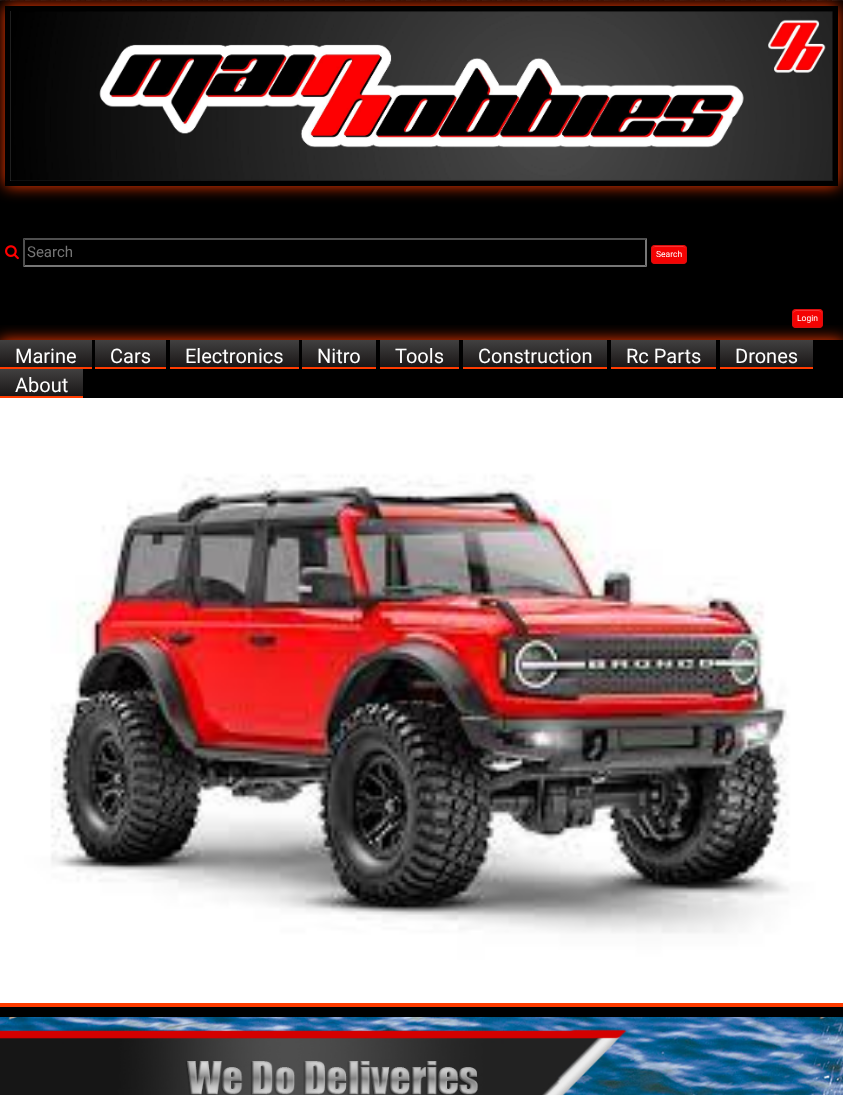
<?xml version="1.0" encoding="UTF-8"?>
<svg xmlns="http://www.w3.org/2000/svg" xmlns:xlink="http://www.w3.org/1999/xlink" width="843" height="1095">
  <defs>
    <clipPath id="clip1"><path d="M 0 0 h 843 v 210 h -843 z m 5 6 h 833 v 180 h -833 z" clip-rule="evenodd" /></clipPath>
    <clipPath id="clip2"><rect x="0" y="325" width="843" height="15" /></clipPath>
    <linearGradient id="g1" gradientUnits="userSpaceOnUse" x1="46" y1="340" x2="46" y2="367"><stop offset="0" stop-color="#414040" /><stop offset="1" stop-color="#1a1717" /></linearGradient>
    <linearGradient id="g2" gradientUnits="userSpaceOnUse" x1="131" y1="340" x2="131" y2="367"><stop offset="0" stop-color="#414040" /><stop offset="1" stop-color="#1a1717" /></linearGradient>
    <linearGradient id="g3" gradientUnits="userSpaceOnUse" x1="235" y1="340" x2="235" y2="367"><stop offset="0" stop-color="#414040" /><stop offset="1" stop-color="#1a1717" /></linearGradient>
    <linearGradient id="g4" gradientUnits="userSpaceOnUse" x1="339" y1="340" x2="339" y2="367"><stop offset="0" stop-color="#414040" /><stop offset="1" stop-color="#1a1717" /></linearGradient>
    <linearGradient id="g5" gradientUnits="userSpaceOnUse" x1="420" y1="340" x2="420" y2="367"><stop offset="0" stop-color="#414040" /><stop offset="1" stop-color="#1a1717" /></linearGradient>
    <linearGradient id="g6" gradientUnits="userSpaceOnUse" x1="535" y1="340" x2="535" y2="367"><stop offset="0" stop-color="#414040" /><stop offset="1" stop-color="#1a1717" /></linearGradient>
    <linearGradient id="g7" gradientUnits="userSpaceOnUse" x1="664" y1="340" x2="664" y2="367"><stop offset="0" stop-color="#414040" /><stop offset="1" stop-color="#1a1717" /></linearGradient>
    <linearGradient id="g8" gradientUnits="userSpaceOnUse" x1="767" y1="340" x2="767" y2="367"><stop offset="0" stop-color="#414040" /><stop offset="1" stop-color="#1a1717" /></linearGradient>
    <linearGradient id="g9" gradientUnits="userSpaceOnUse" x1="42" y1="369" x2="42" y2="396"><stop offset="0" stop-color="#414040" /><stop offset="1" stop-color="#1a1717" /></linearGradient>
  </defs>
  <rect width="100%" height="100%" fill="#ffffff" />
  <image x="0" y="0" width="843" height="1" xlink:href="image1.png" />
  <rect x="-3" y="-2" width="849" height="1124" fill="#000000" filter="blur(9px)" />
  <rect y="1" width="843" height="1016" fill="#000000" />
  <g clip-path="url(#clip1)">
    <rect x="5" y="6" width="833" height="180" fill="#ff3c00" filter="blur(7.5px)" />
  </g>
  <image x="10" y="11" width="823" height="170" xlink:href="image2.png" />
  <image x="5" y="245" width="14" height="15" xlink:href="image3.png" />
  <path d="M 23 238 h 624 l -2 2 h -620 z" fill="#4f4f4f" />
  <path d="M 647 238 v 29 l -2 -2 v -25 z" fill="#767676" />
  <path d="M 647 267 h -624 l 2 -2 h 620 z" fill="#767676" />
  <path d="M 23 267 v -29 l 2 2 v 25 z" fill="#4f4f4f" />
  <rect x="651" y="245" width="36" height="19" rx="4" fill="#f40303" />
  <path d="M 655 247 h 28 c 2 0 3 1 3 3 c 0 -5 -3.5 -4 -7.5 -4 h -19 c -4 0 -7.5 -1 -7.5 4 c 0 -2 1 -3 3 -3 z" fill="#f63535" />
  <rect x="651.5" y="245.5" width="35" height="18" rx="3.5" fill="none" stroke="#da0f0f" />
  <g clip-path="url(#clip2)">
    <rect y="340" width="843" height="58" fill="#ff3c00" filter="blur(7.5px)" />
  </g>
  <rect x="792" y="309" width="31" height="19" rx="4" fill="#f40303" />
  <path d="M 796 311 h 15 c 6 0 8.5 -0.5 10 1 c 1 1 1 3.5 1 8 c 0 -11 1 -10 -10.5 -10 h -11.5 c -3.5 0 -7 -0.5 -7 3.5 l 1 -1.5 z m -3 14 v -5 z" fill="#f63535" fill-rule="evenodd" />
  <rect x="792.5" y="309.5" width="30" height="18" rx="3.5" fill="none" stroke="#da0f0f" />
  <rect y="340" width="92" height="27" fill="url(#g1)" />
  <rect y="367" width="92" height="2" fill="#ff3c00" />
  <rect x="95" y="340" width="71" height="27" fill="url(#g2)" />
  <rect x="95" y="367" width="71" height="2" fill="#ff3c00" />
  <rect x="170" y="340" width="129" height="27" fill="url(#g3)" />
  <rect x="170" y="367" width="129" height="2" fill="#ff3c00" />
  <rect x="302" y="340" width="74" height="27" fill="url(#g4)" />
  <rect x="302" y="367" width="74" height="2" fill="#ff3c00" />
  <rect x="380" y="340" width="79" height="27" fill="url(#g5)" />
  <rect x="380" y="367" width="79" height="2" fill="#ff3c00" />
  <rect x="463" y="340" width="144" height="27" fill="url(#g6)" />
  <rect x="463" y="367" width="144" height="2" fill="#ff3c00" />
  <rect x="611" y="340" width="105" height="27" fill="url(#g7)" />
  <rect x="611" y="367" width="105" height="2" fill="#ff3c00" />
  <rect x="720" y="340" width="93" height="27" fill="url(#g8)" />
  <rect x="720" y="367" width="93" height="2" fill="#ff3c00" />
  <rect y="369" width="83" height="27" fill="url(#g9)" />
  <rect y="396" width="83" height="2" fill="#ff3c00" />
  <rect y="1003" width="843" height="4" fill="#ff3c00" />
  <image x="0" y="398" width="843" height="605" xlink:href="image4.png" />
  <image x="0" y="1017" width="843" height="78" xlink:href="image5.png" />
  <text x="27" y="257" style="font-family: Roboto; font-size: 15px; fill: #757575">Search</text>
  <text x="656" y="257" style="font-family: Roboto; font-size: 8.5px; fill: #ffffff">Search</text>
  <text x="797" y="321" style="font-family: Roboto; font-size: 8.5px; fill: #ffffff">Login</text>
  <text x="15" y="363" style="font-family: Roboto; font-size: 20px; fill: #ffffff">Marine</text>
  <text x="110" y="363" style="font-family: Roboto; font-size: 20px; fill: #ffffff">Cars</text>
  <text x="185" y="363" style="font-family: Roboto; font-size: 20px; fill: #ffffff">Electronics</text>
  <text x="317" y="363" style="font-family: Roboto; font-size: 20px; fill: #ffffff">Nitro</text>
  <text x="395" y="363" style="font-family: Roboto; font-size: 20px; fill: #ffffff">Tools</text>
  <text x="478" y="363" style="font-family: Roboto; font-size: 20px; fill: #ffffff">Construction</text>
  <text x="626" y="363" style="font-family: Roboto; font-size: 20px; fill: #ffffff">Rc Parts</text>
  <text x="735" y="363" style="font-family: Roboto; font-size: 20px; fill: #ffffff">Drones</text>
  <text x="15" y="392" style="font-family: Roboto; font-size: 20px; fill: #ffffff">About</text>
</svg>
